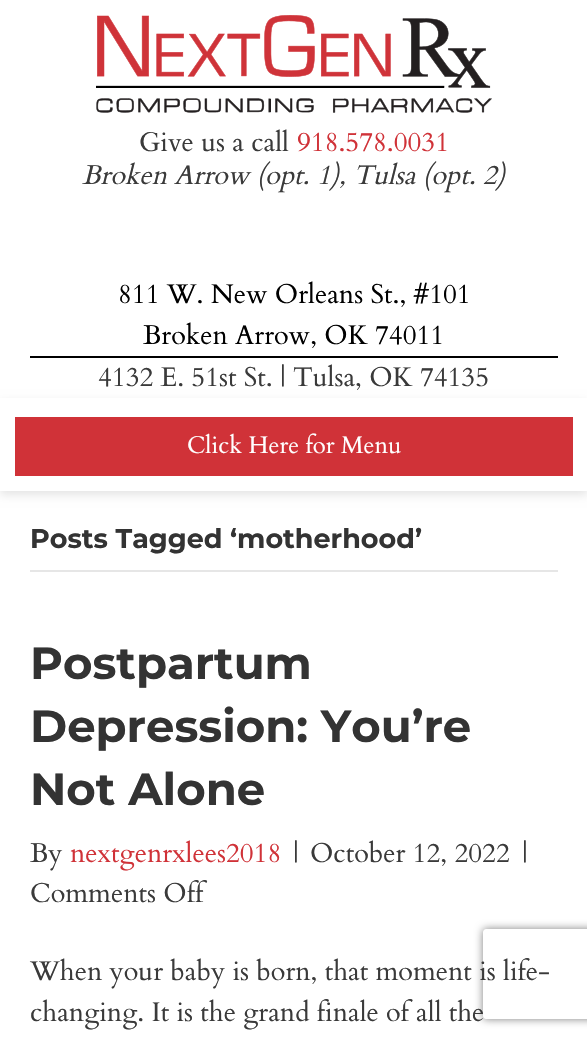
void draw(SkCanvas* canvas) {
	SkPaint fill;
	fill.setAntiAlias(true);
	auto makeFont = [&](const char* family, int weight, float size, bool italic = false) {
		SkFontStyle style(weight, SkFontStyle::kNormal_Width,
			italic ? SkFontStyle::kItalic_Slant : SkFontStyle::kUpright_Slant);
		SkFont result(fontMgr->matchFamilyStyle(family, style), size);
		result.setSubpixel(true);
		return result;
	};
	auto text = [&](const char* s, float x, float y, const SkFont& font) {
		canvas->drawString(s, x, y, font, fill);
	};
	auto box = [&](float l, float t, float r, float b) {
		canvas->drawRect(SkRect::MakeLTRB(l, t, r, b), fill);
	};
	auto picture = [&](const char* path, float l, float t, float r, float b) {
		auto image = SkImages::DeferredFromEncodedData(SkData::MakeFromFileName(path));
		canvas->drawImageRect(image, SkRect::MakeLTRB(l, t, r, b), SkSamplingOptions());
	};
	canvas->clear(0xFFFFFFFF);
	picture("image0.png", 96, 15, 492, 113);
	fill.setColor(0xFF000000);
	box(30, 356, 558, 358);
	fill.setColor(0x1A020000);
	fill.setMaskFilter(SkMaskFilter::MakeBlur(kNormal_SkBlurStyle, 4.5f));
	canvas->drawRect(SkRect::MakeLTRB(0, 402, 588, 495), fill);
	fill.setMaskFilter(nullptr);
	fill.setColor(0xFFFFFFFF);
	box(0, 398, 587, 491);
	fill.setColor(0xFFD03238);
	box(15, 417, 573, 476);
	fill.setColor(0xFFE6E6E6);
	box(30, 570, 558, 572);
	canvas->save();
	canvas->clipPath(SkPathBuilder(SkPathFillType::kEvenOdd).moveTo(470, 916).lineTo(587, 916).lineTo(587, 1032).lineTo(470, 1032).close().moveTo(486, 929).lineTo(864, 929).cubicTo(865.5f, 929, 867, 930.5f, 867, 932).lineTo(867, 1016).cubicTo(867, 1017.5f, 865.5f, 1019, 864, 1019).lineTo(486, 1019).cubicTo(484.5f, 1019, 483, 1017.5f, 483, 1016).lineTo(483, 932).cubicTo(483, 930.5f, 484.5f, 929, 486, 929).close().detach(), true);
	fill.setColor(0xFF808080);
	fill.setMaskFilter(SkMaskFilter::MakeBlur(kNormal_SkBlurStyle, 4));
	canvas->drawRoundRect(SkRect::MakeLTRB(483, 929, 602, 1019), 3, 3, fill);
	fill.setMaskFilter(nullptr);
	canvas->restore();
	auto font1 = makeFont("Cardo", 400, 27);
	fill.setColor(0xFF3A3A3A);
	text("Give us a call", 139, 151, font1);
	fill.setColor(0xFFD03238);
	text("918.578.0031", 297, 151, font1);
	auto font2 = makeFont("Cardo", 400, 27, true);
	fill.setColor(0xFF3A3A3A);
	text("Broken Arrow (opt. 1), Tulsa (opt. 2)", 82, 184, font2);
	fill.setColor(0xFF000000);
	text("811 W. New Orleans St., #101", 118, 303, font1);
	text("Broken Arrow, OK 74011", 143, 344, font1);
	fill.setColor(0xFF3A3A3A);
	text("4132 E. 51st St. | Tulsa, OK 74135", 98, 386, font1);
	auto font3 = makeFont("Cardo", 400, 24);
	fill.setColor(0xFFFFFFFF);
	text("Click Here for Menu", 187, 453, font3);
	auto font4 = makeFont("Montserrat", 100, 27);
	fill.setColor(0xFF333333);
	text("Posts Tagged ‘motherhood’", 30, 548, font4);
	auto font5 = makeFont("Montserrat", 100, 45);
	text("Postpartum", 30, 679, font5);
	text("Depression: You’re", 30, 742, font5);
	text("Not Alone", 30, 805, font5);
	fill.setColor(0xFF3A3A3A);
	text("By", 30, 862, font1);
	fill.setColor(0xFFD03238);
	text("nextgenrxlees2018", 70, 862, font1);
	fill.setColor(0xFF3A3A3A);
	text("|", 293, 862, font1);
	text("October 12, 2022", 310, 862, font1);
	text("|", 522, 862, font1);
	text("Comments Off", 30, 902, font1);
	text("When your baby is born, that moment is life-", 30, 980, font1);
	text("changing. It is the grand finale of all the", 30, 1021, font1);
}
